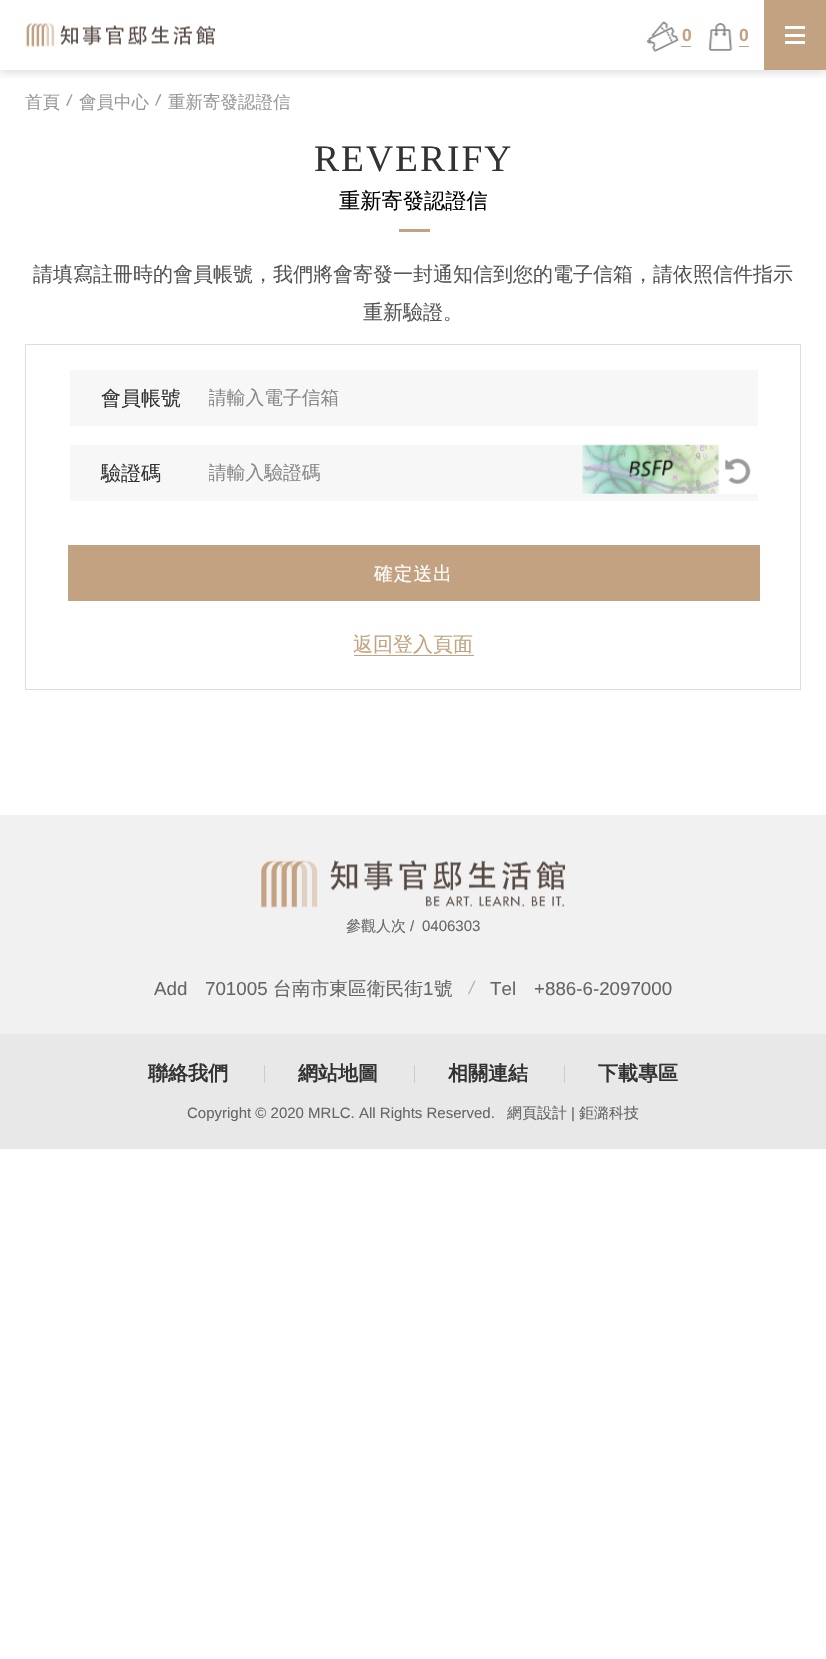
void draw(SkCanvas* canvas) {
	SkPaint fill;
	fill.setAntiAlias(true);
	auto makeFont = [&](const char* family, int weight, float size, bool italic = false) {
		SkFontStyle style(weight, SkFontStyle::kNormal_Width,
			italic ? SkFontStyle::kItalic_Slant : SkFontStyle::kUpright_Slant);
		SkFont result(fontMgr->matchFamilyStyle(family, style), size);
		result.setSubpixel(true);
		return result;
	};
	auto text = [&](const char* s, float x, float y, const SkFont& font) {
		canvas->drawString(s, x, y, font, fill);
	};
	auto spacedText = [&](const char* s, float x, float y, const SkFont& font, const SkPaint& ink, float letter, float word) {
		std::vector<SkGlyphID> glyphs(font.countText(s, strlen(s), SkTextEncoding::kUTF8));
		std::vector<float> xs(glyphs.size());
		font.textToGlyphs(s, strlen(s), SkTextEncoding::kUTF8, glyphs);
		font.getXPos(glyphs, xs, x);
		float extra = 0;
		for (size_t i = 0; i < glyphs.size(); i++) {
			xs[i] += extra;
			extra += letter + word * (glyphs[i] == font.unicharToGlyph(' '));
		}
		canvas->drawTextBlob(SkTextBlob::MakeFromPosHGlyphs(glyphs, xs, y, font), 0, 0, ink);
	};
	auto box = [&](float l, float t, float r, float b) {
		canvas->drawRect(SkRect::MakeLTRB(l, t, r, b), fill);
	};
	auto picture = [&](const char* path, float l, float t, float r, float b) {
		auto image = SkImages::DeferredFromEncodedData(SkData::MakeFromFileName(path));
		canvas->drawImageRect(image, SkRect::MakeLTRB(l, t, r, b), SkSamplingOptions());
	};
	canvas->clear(0xFFFFFFFF);
	canvas->save();
	canvas->clipRect(SkRect::MakeLTRB(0, 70, 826, 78));
	fill.setColor(0x33000000);
	fill.setMaskFilter(SkMaskFilter::MakeBlur(kNormal_SkBlurStyle, 6));
	canvas->drawRect(SkRect::MakeLTRB(0, 0, 826, 70), fill);
	fill.setMaskFilter(nullptr);
	canvas->restore();
	picture("image0.png", 26, 23, 215, 47);
	picture("image1.png", 646, 21, 679, 52);
	fill.setColor(0xFFC3A282);
	box(681, 46, 691, 47);
	picture("image2.png", 708, 23, 733, 51);
	box(739, 46, 749, 47);
	box(764, 0, 826, 70);
	fill.setColor(0xFFFFFFFF);
	box(785, 26, 805, 29);
	box(785, 34, 805, 37);
	box(785, 41, 805, 44);
	fill.setColor(0xFF999999);
	canvas->drawPath(SkPathBuilder().moveTo(71.5f, 94).lineTo(72.5f, 94.5f).lineTo(67.5f, 106).lineTo(66, 105.5f).close().detach(), fill);
	canvas->drawPath(SkPathBuilder().moveTo(160, 94).lineTo(161.5f, 94.5f).lineTo(156, 106).lineTo(155, 105.5f).close().detach(), fill);
	fill.setColor(0xFFC3A282);
	box(399, 229, 430, 232);
	fill.setStyle(SkPaint::kStroke_Style);
	fill.setStrokeWidth(1);
	fill.setColor(0xFFDDDDDD);
	canvas->drawRect(SkRect::MakeLTRB(25.5f, 344.5f, 800.5f, 689.5f), fill);
	fill.setStyle(SkPaint::kFill_Style);
	fill.setColor(0xFFF7F7F7);
	box(70, 370, 758, 426);
	box(70, 445, 758, 501);
	fill.setColor(0xFFFFFFFF);
	box(583, 445, 758, 494);
	picture("image3.png", 582, 444, 720, 494);
	picture("image4.png", 725, 458, 751, 484);
	fill.setColor(0xFFC3A282);
	box(68, 545, 760, 601);
	box(354, 655, 474, 656);
	fill.setColor(0xFFF1F1F1);
	box(0, 815, 826, 1034);
	picture("image5.png", 261, 860, 565, 908);
	fill.setColor(0xFFAAAAAA);
	canvas->drawPath(SkPathBuilder().moveTo(474.5f, 980.5f).lineTo(475.5f, 981).lineTo(469, 994.5f).lineTo(468, 994).close().detach(), fill);
	fill.setColor(0xFFE9E8E8);
	box(0, 1034, 826, 1149);
	fill.setColor(0xFFCCCCCC);
	box(264, 1065, 265, 1083);
	box(414, 1065, 415, 1083);
	box(564, 1065, 565, 1083);
	auto font1 = makeFont("Liberation Sans", 700, 17.5f);
	fill.setColor(0xFFC3A282);
	text("0", 682, 41, font1);
	text("0", 739, 41, font1);
	auto font2 = makeFont("WenQuanYi Zen Hei", 500, 17.5f);
	fill.setColor(0xFF999999);
	text("首頁", 25, 108, font2);
	text("會員中心", 79, 108, font2);
	text("重新寄發認證信", 168, 108, font2);
	auto font3 = makeFont("Liberation Serif", 400, 37.5f);
	fill.setColor(0xFF333333);
	spacedText("REVERIFY", 314, 171, font3, fill, 2, 0);
	auto font4 = makeFont("WenQuanYi Zen Hei", 500, 21.25f);
	fill.setColor(0xFF000000);
	text("重新寄發認證信", 339, 208, font4);
	auto font5 = makeFont("WenQuanYi Zen Hei", 500, 20);
	fill.setColor(0xFF555555);
	text("請填寫註冊時的會員帳號，我們將會寄發一封通知信到您的電子信箱，請依照信件指示", 33, 281, font5);
	text("重新驗證。", 363, 319, font5);
	fill.setColor(0xFF333333);
	text("會員帳號", 101, 405, font5);
	canvas->save();
	canvas->clipRect(SkRect::MakeLTRB(209, 386, 744, 410));
	auto font6 = makeFont("WenQuanYi Zen Hei", 500, 18.75f);
	fill.setColor(0xFF888888);
	text("請輸入電子信箱", 208, 404, font6);
	canvas->restore();
	fill.setColor(0xFF333333);
	text("驗證碼", 101, 480, font5);
	canvas->save();
	canvas->clipRect(SkRect::MakeLTRB(209, 461, 544, 485));
	fill.setColor(0xFF888888);
	text("請輸入驗證碼", 208, 479, font6);
	canvas->restore();
	fill.setColor(0xFFFFFFFF);
	spacedText("確定送出", 374, 580, font6, fill, 1, 0);
	fill.setColor(0xFFC3A282);
	text("返回登入頁面", 353, 651, font5);
	auto font7 = makeFont("WenQuanYi Zen Hei", 500, 15);
	fill.setColor(0xFF666666);
	text("參觀人次", 346, 931, font7);
	auto font8 = makeFont("Liberation Sans", 400, 15);
	text("/", 410, 931, font8);
	text("0406303", 422, 931, font8);
	auto font9 = makeFont("Liberation Sans", 400, 18.75f);
	text("Add", 154, 995, font9);
	text("701005", 205, 995, font9);
	text("台南市東區衛民街", 273, 995, font6);
	text("1", 423, 995, font9);
	text("號", 434, 995, font6);
	text("Tel", 490, 995, font9);
	text("+886-6-2097000", 534, 995, font9);
	auto font10 = makeFont("WenQuanYi Zen Hei", 700, 20);
	fill.setColor(0xFF333333);
	text("聯絡我們", 148, 1080, font10);
	text("網站地圖", 298, 1080, font10);
	text("相關連結", 448, 1080, font10);
	text("下載專區", 598, 1080, font10);
	fill.setColor(0xFF666666);
	text("Copyright © 2020 MRLC. All Rights Reserved.", 187, 1118, font8);
	text("網頁設計", 507, 1118, font7);
	text("|", 571, 1118, font8);
	text("鉅潞科技", 579, 1118, font7);
}
